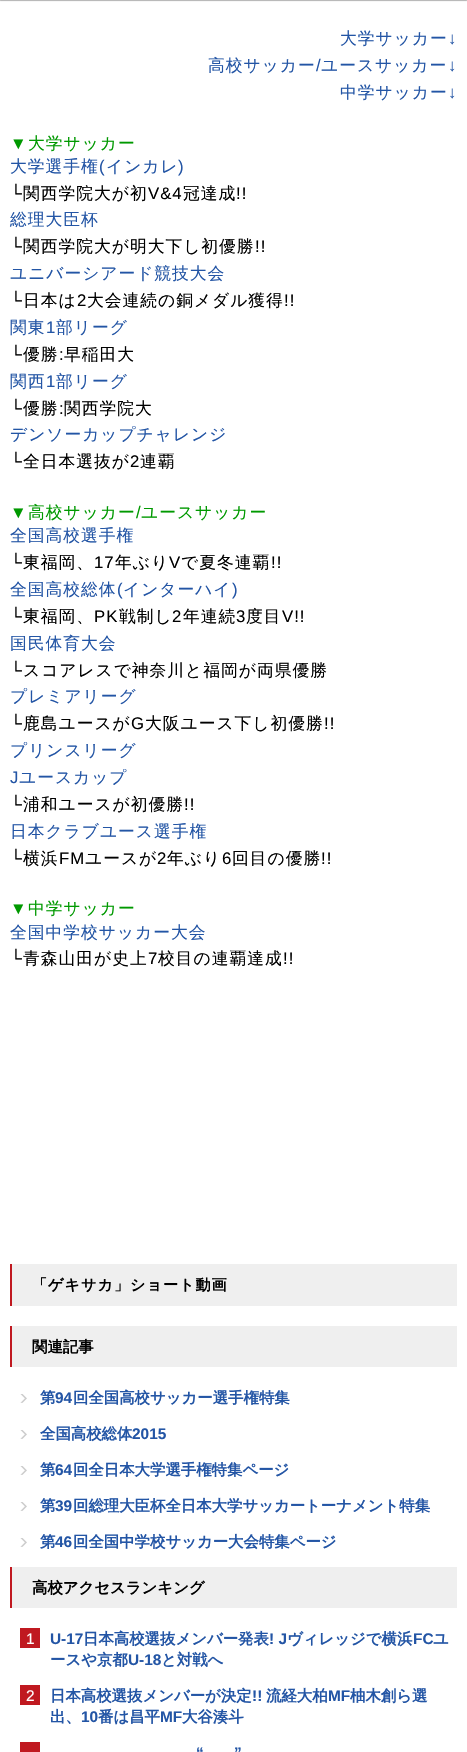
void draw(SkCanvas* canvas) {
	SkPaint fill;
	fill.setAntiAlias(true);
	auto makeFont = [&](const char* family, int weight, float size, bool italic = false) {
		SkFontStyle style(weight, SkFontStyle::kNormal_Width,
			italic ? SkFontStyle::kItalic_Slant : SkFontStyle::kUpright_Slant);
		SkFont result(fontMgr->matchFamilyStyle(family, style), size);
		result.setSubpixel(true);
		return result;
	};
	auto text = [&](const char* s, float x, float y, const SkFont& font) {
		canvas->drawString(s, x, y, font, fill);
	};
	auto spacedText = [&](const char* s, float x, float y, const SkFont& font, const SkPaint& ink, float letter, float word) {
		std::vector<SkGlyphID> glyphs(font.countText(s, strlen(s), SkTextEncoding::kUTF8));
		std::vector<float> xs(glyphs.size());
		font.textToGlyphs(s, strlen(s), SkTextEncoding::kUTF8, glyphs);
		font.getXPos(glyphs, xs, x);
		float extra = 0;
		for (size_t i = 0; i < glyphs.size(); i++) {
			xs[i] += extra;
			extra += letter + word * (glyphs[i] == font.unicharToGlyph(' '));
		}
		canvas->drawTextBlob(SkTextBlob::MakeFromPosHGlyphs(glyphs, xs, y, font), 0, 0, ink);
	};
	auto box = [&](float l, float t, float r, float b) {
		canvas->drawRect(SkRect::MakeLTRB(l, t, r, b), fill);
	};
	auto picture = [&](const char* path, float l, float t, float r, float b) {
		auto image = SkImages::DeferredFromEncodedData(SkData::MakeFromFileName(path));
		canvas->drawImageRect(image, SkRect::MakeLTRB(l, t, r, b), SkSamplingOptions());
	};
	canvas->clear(0xFFFFFFFF);
	fill.setColor(0x4D000000);
	fill.setMaskFilter(SkMaskFilter::MakeBlur(kNormal_SkBlurStyle, 0.5f));
	canvas->drawRect(SkRect::MakeLTRB(0, -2, 467, 1), fill);
	fill.setMaskFilter(nullptr);
	fill.setColor(0xFFEFEFEF);
	box(12, 1264, 457, 1306);
	fill.setColor(0xFFC01920);
	box(10, 1264, 12, 1306);
	fill.setColor(0xFFEFEFEF);
	box(12, 1326, 457, 1367);
	fill.setColor(0xFFC01920);
	box(10, 1326, 12, 1367);
	picture("image0.png", 20, 1394, 27, 1403);
	picture("image0.png", 20, 1430, 27, 1439);
	picture("image0.png", 20, 1466, 27, 1475);
	picture("image0.png", 20, 1502, 27, 1511);
	picture("image0.png", 20, 1538, 27, 1547);
	fill.setColor(0xFFEFEFEF);
	box(12, 1567, 457, 1608);
	fill.setColor(0xFFC01920);
	box(10, 1567, 12, 1608);
	box(20, 1628, 40, 1648);
	box(20, 1685, 40, 1705);
	box(20, 1742, 40, 1752);
	auto font1 = makeFont("WenQuanYi Zen Hei", 500, 16.75f);
	fill.setColor(0xFF2355A5);
	spacedText("大学サッカー", 340, 44, font1, fill, 1, 0);
	auto font2 = makeFont("Liberation Sans", 400, 16.75f);
	spacedText("↓", 448, 44, font2, fill, 1, 0);
	spacedText("高校サッカー", 208, 71, font1, fill, 1, 0);
	spacedText("/", 316, 71, font2, fill, 1, 0);
	spacedText("ユースサッカー", 321, 71, font1, fill, 1, 0);
	spacedText("↓", 448, 71, font2, fill, 1, 0);
	spacedText("中学サッカー", 340, 98, font1, fill, 1, 0);
	spacedText("↓", 448, 98, font2, fill, 1, 0);
	fill.setColor(0xFF009900);
	spacedText("▼", 10, 149, font2, fill, 1, 0);
	spacedText("大学サッカー", 28, 149, font1, fill, 1, 0);
	fill.setColor(0xFF2355A5);
	spacedText("大学選手権", 10, 172, font1, fill, 1, 0);
	spacedText("(", 99, 172, font2, fill, 1, 0);
	spacedText("インカレ", 106, 172, font1, fill, 1, 0);
	spacedText(")", 178, 172, font2, fill, 1, 0);
	fill.setColor(0xFF000000);
	spacedText("└", 10, 199, font2, fill, 1, 0);
	spacedText("関西学院大が初", 23, 199, font1, fill, 1, 0);
	spacedText("V&4", 148, 199, font2, fill, 1, 0);
	spacedText("冠達成", 183, 199, font1, fill, 1, 0);
	spacedText("!!", 236, 199, font2, fill, 1, 0);
	fill.setColor(0xFF2355A5);
	spacedText("総理大臣杯", 10, 225, font1, fill, 1, 0);
	fill.setColor(0xFF000000);
	spacedText("└", 10, 252, font2, fill, 1, 0);
	spacedText("関西学院大が明大下し初優勝", 23, 252, font1, fill, 1, 0);
	spacedText("!!", 255, 252, font2, fill, 1, 0);
	fill.setColor(0xFF2355A5);
	spacedText("ユニバーシアード競技大会", 10, 279, font1, fill, 1, 0);
	fill.setColor(0xFF000000);
	spacedText("└", 10, 306, font2, fill, 1, 0);
	spacedText("日本は", 23, 306, font1, fill, 1, 0);
	spacedText("2", 77, 306, font2, fill, 1, 0);
	spacedText("大会連続の銅メダル獲得", 87, 306, font1, fill, 1, 0);
	spacedText("!!", 284, 306, font2, fill, 1, 0);
	fill.setColor(0xFF2355A5);
	spacedText("関東", 10, 333, font1, fill, 1, 0);
	spacedText("1", 46, 333, font2, fill, 1, 0);
	spacedText("部リーグ", 56, 333, font1, fill, 1, 0);
	fill.setColor(0xFF000000);
	spacedText("└", 10, 360, font2, fill, 1, 0);
	spacedText("優勝", 23, 360, font1, fill, 1, 0);
	spacedText(":", 59, 360, font2, fill, 1, 0);
	spacedText("早稲田大", 64, 360, font1, fill, 1, 0);
	fill.setColor(0xFF2355A5);
	spacedText("関西", 10, 387, font1, fill, 1, 0);
	spacedText("1", 46, 387, font2, fill, 1, 0);
	spacedText("部リーグ", 56, 387, font1, fill, 1, 0);
	fill.setColor(0xFF000000);
	spacedText("└", 10, 414, font2, fill, 1, 0);
	spacedText("優勝", 23, 414, font1, fill, 1, 0);
	spacedText(":", 59, 414, font2, fill, 1, 0);
	spacedText("関西学院大", 64, 414, font1, fill, 1, 0);
	fill.setColor(0xFF2355A5);
	spacedText("デンソーカップチャレンジ", 10, 440, font1, fill, 1, 0);
	fill.setColor(0xFF000000);
	spacedText("└", 10, 467, font2, fill, 1, 0);
	spacedText("全日本選抜が", 23, 467, font1, fill, 1, 0);
	spacedText("2", 130, 467, font2, fill, 1, 0);
	spacedText("連覇", 140, 467, font1, fill, 1, 0);
	fill.setColor(0xFF009900);
	spacedText("▼", 10, 518, font2, fill, 1, 0);
	spacedText("高校サッカー", 28, 518, font1, fill, 1, 0);
	spacedText("/", 136, 518, font2, fill, 1, 0);
	spacedText("ユースサッカー", 141, 518, font1, fill, 1, 0);
	fill.setColor(0xFF2355A5);
	spacedText("全国高校選手権", 10, 541, font1, fill, 1, 0);
	fill.setColor(0xFF000000);
	spacedText("└", 10, 568, font2, fill, 1, 0);
	spacedText("東福岡、", 23, 568, font1, fill, 1, 0);
	spacedText("17", 94, 568, font2, fill, 1, 0);
	spacedText("年ぶり", 115, 568, font1, fill, 1, 0);
	spacedText("V", 169, 568, font2, fill, 1, 0);
	spacedText("で夏冬連覇", 181, 568, font1, fill, 1, 0);
	spacedText("!!", 271, 568, font2, fill, 1, 0);
	fill.setColor(0xFF2355A5);
	spacedText("全国高校総体", 10, 595, font1, fill, 1, 0);
	spacedText("(", 117, 595, font2, fill, 1, 0);
	spacedText("インターハイ", 123, 595, font1, fill, 1, 0);
	spacedText(")", 232, 595, font2, fill, 1, 0);
	fill.setColor(0xFF000000);
	spacedText("└", 10, 622, font2, fill, 1, 0);
	spacedText("東福岡、", 23, 622, font1, fill, 1, 0);
	spacedText("PK", 94, 622, font2, fill, 1, 0);
	spacedText("戦制し", 119, 622, font1, fill, 1, 0);
	spacedText("2", 172, 622, font2, fill, 1, 0);
	spacedText("年連続", 183, 622, font1, fill, 1, 0);
	spacedText("3", 236, 622, font2, fill, 1, 0);
	spacedText("度目", 246, 622, font1, fill, 1, 0);
	spacedText("V!!", 282, 622, font2, fill, 1, 0);
	fill.setColor(0xFF2355A5);
	spacedText("国民体育大会", 10, 649, font1, fill, 1, 0);
	fill.setColor(0xFF000000);
	spacedText("└", 10, 676, font2, fill, 1, 0);
	spacedText("スコアレスで神奈川と福岡が両県優勝", 23, 676, font1, fill, 1, 0);
	fill.setColor(0xFF2355A5);
	spacedText("プレミアリーグ", 10, 702, font1, fill, 1, 0);
	fill.setColor(0xFF000000);
	spacedText("└", 10, 729, font2, fill, 1, 0);
	spacedText("鹿島ユースが", 23, 729, font1, fill, 1, 0);
	spacedText("G", 131, 729, font2, fill, 1, 0);
	spacedText("大阪ユース下し初優勝", 145, 729, font1, fill, 1, 0);
	spacedText("!!", 324, 729, font2, fill, 1, 0);
	fill.setColor(0xFF2355A5);
	spacedText("プリンスリーグ", 10, 756, font1, fill, 1, 0);
	spacedText("J", 10, 783, font2, fill, 1, 0);
	spacedText("ユースカップ", 19, 783, font1, fill, 1, 0);
	fill.setColor(0xFF000000);
	spacedText("└", 10, 810, font2, fill, 1, 0);
	spacedText("浦和ユースが初優勝", 23, 810, font1, fill, 1, 0);
	spacedText("!!", 184, 810, font2, fill, 1, 0);
	fill.setColor(0xFF2355A5);
	spacedText("日本クラブユース選手権", 10, 837, font1, fill, 1, 0);
	fill.setColor(0xFF000000);
	spacedText("└", 10, 864, font2, fill, 1, 0);
	spacedText("横浜", 23, 864, font1, fill, 1, 0);
	spacedText("FM", 59, 864, font2, fill, 1, 0);
	spacedText("ユースが", 85, 864, font1, fill, 1, 0);
	spacedText("2", 157, 864, font2, fill, 1, 0);
	spacedText("年ぶり", 167, 864, font1, fill, 1, 0);
	spacedText("6", 222, 864, font2, fill, 1, 0);
	spacedText("回目の優勝", 232, 864, font1, fill, 1, 0);
	spacedText("!!", 321, 864, font2, fill, 1, 0);
	fill.setColor(0xFF009900);
	spacedText("▼", 10, 914, font2, fill, 1, 0);
	spacedText("中学サッカー", 28, 914, font1, fill, 1, 0);
	fill.setColor(0xFF2355A5);
	spacedText("全国中学校サッカー大会", 10, 938, font1, fill, 1, 0);
	fill.setColor(0xFF000000);
	spacedText("└", 10, 964, font2, fill, 1, 0);
	spacedText("青森山田が史上", 23, 964, font1, fill, 1, 0);
	spacedText("7", 148, 964, font2, fill, 1, 0);
	spacedText("校目の連覇達成", 158, 964, font1, fill, 1, 0);
	spacedText("!!", 283, 964, font2, fill, 1, 0);
	auto font3 = makeFont("WenQuanYi Zen Hei", 700, 15.1f);
	spacedText("「ゲキサカ」ショート動画", 32, 1290, font3, fill, 1, 0);
	auto font4 = makeFont("WenQuanYi Zen Hei", 700, 15.4f);
	text("関連記事", 32, 1352, font4);
	fill.setColor(0xFF2355A5);
	text("第", 40, 1403, font4);
	auto font5 = makeFont("Liberation Sans", 700, 15.4f);
	text("94", 55, 1403, font5);
	text("回全国高校サッカー選手権特集", 73, 1403, font4);
	text("全国高校総体", 40, 1439, font4);
	text("2015", 132, 1439, font5);
	text("第", 40, 1475, font4);
	text("64", 55, 1475, font5);
	text("回全日本大学選手権特集ページ", 73, 1475, font4);
	text("第", 40, 1511, font4);
	text("39", 55, 1511, font5);
	text("回総理大臣杯全日本大学サッカートーナメント特集", 73, 1511, font4);
	text("第", 40, 1547, font4);
	text("46", 55, 1547, font5);
	text("回全国中学校サッカー大会特集ページ", 73, 1547, font4);
	fill.setColor(0xFF000000);
	text("高校アクセスランキング", 32, 1593, font4);
	auto font6 = makeFont("Liberation Sans", 400, 15.4f);
	fill.setColor(0xFFFFFFFF);
	text("1", 26, 1644, font6);
	fill.setColor(0xFF2355A5);
	text("U-17", 50, 1644, font5);
	text("日本高校選抜メンバー発表", 83, 1644, font4);
	text("! J", 269, 1644, font5);
	text("ヴィレッジで横浜", 287, 1644, font4);
	text("FC", 413, 1644, font5);
	text("ユ", 433, 1644, font4);
	text("ースや京都", 50, 1665, font4);
	text("U-18", 128, 1665, font5);
	text("と対戦へ", 161, 1665, font4);
	fill.setColor(0xFFFFFFFF);
	text("2", 26, 1701, font6);
	fill.setColor(0xFF2355A5);
	text("日本高校選抜メンバーが決定", 50, 1701, font4);
	text("!!", 252, 1701, font5);
	text("流経大柏", 266, 1701, font4);
	text("MF", 328, 1701, font5);
	text("柚木創ら選", 350, 1701, font4);
	text("出、", 50, 1722, font4);
	text("10", 81, 1722, font5);
	text("番は昌平", 98, 1722, font4);
	text("MF", 160, 1722, font5);
	text("大谷湊斗", 182, 1722, font4);
	text("“", 196, 1758, font5);
	text("”", 234, 1758, font5);
}
